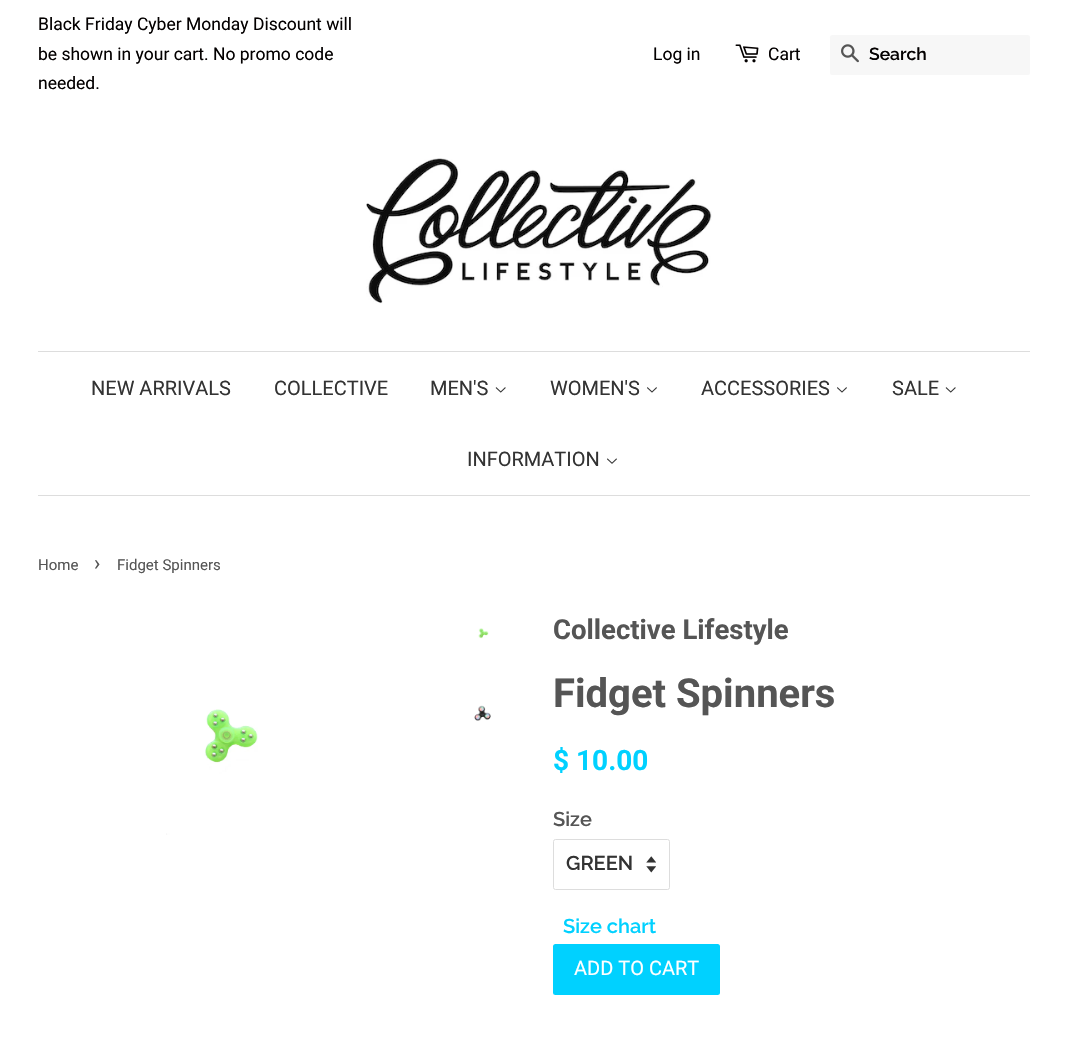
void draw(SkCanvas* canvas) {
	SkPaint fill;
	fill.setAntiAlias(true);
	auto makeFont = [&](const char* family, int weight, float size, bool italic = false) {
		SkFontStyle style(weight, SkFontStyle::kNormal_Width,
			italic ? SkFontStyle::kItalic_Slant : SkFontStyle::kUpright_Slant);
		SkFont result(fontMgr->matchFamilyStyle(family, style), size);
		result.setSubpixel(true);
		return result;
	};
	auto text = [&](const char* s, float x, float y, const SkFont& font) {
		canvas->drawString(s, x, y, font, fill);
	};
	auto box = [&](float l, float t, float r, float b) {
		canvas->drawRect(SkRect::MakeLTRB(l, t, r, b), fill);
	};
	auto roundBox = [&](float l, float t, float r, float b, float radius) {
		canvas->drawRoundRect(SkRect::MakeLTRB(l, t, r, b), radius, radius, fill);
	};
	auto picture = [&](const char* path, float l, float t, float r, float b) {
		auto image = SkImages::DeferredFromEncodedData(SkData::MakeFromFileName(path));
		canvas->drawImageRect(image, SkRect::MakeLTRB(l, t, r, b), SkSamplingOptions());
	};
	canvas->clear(0xFFFFFFFF);
	picture("image0.png", 735, 44, 759, 63);
	fill.setColor(0xFFF7F7F7);
	roundBox(830, 35, 1030, 75, 2.5f);
	picture("image1.png", 841, 44, 859, 63);
	picture("image2.png", 366, 158, 712, 304);
	fill.setColor(0xFFDDDDDD);
	box(38, 351, 1030, 352);
	box(38, 495, 1030, 496);
	picture("image3.png", 495, 387, 506, 393);
	picture("image4.png", 647, 387, 657, 393);
	picture("image4.png", 837, 387, 847, 393);
	picture("image3.png", 945, 387, 956, 393);
	picture("image5.png", 607, 458, 617, 464);
	picture("image6.png", 478, 628, 489, 639);
	picture("image7.png", 474, 705, 491, 721);
	picture("image8.png", 166, 709, 258, 835);
	picture("image9.png", 646, 856, 656, 873);
	fill.setStyle(SkPaint::kStroke_Style);
	fill.setStrokeWidth(1);
	canvas->drawRoundRect(SkRect::MakeLTRB(553.5f, 839.5f, 669.5f, 889.5f), 2, 2, fill);
	fill.setStyle(SkPaint::kFill_Style);
	fill.setColor(0xFF00D1FF);
	roundBox(553, 944, 720, 995, 2.5f);
	auto font1 = makeFont("Roboto", 400, 17.5f);
	fill.setColor(0xFF030000);
	text("Black Friday Cyber Monday Discount will", 38, 30, font1);
	text("be shown in your cart. No promo code", 38, 60, font1);
	text("needed.", 38, 89, font1);
	text("Log in", 653, 60, font1);
	text("Cart", 768, 60, font1);
	auto font2 = makeFont("Raleway", 600, 17.5f);
	text("Search", 869, 60, font2);
	auto font3 = makeFont("Roboto", 400, 20);
	fill.setColor(0xFF333333);
	text("NEW ARRIVALS", 91, 395, font3);
	text("COLLECTIVE", 274, 395, font3);
	text("MEN'S", 430, 395, font3);
	text("WOMEN'S", 550, 395, font3);
	text("ACCESSORIES", 701, 395, font3);
	text("SALE", 892, 395, font3);
	text("INFORMATION", 467, 466, font3);
	auto font4 = makeFont("Roboto", 400, 15);
	fill.setColor(0xFF555555);
	text("Home", 38, 570, font4);
	auto font5 = makeFont("Roboto", 400, 21);
	text("›", 94, 570, font5);
	text("Fidget Spinners", 117, 570, font4);
	auto font6 = makeFont("Roboto", 700, 27.5f);
	text("Collective Lifestyle", 553, 639, font6);
	auto font7 = makeFont("Roboto", 700, 40);
	text("Fidget Spinners", 553, 707, font7);
	auto font8 = makeFont("Roboto", 700, 28);
	fill.setColor(0xFF00D1FF);
	text("$ 10.00", 553, 770, font8);
	auto font9 = makeFont("Raleway", 600, 20);
	fill.setColor(0xFF555555);
	text("Size", 553, 826, font9);
	fill.setColor(0xFF333333);
	text("GREEN", 566, 870, font9);
	fill.setColor(0xFF00D1FF);
	text("Size chart", 563, 933, font9);
	fill.setColor(0xFFFFFFFF);
	text("ADD TO CART", 574, 975, font3);
}
